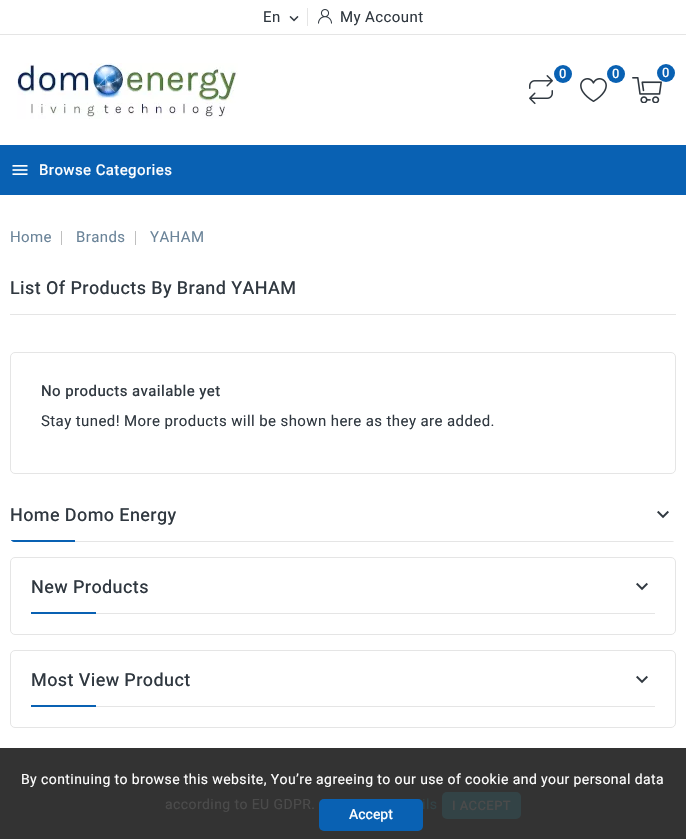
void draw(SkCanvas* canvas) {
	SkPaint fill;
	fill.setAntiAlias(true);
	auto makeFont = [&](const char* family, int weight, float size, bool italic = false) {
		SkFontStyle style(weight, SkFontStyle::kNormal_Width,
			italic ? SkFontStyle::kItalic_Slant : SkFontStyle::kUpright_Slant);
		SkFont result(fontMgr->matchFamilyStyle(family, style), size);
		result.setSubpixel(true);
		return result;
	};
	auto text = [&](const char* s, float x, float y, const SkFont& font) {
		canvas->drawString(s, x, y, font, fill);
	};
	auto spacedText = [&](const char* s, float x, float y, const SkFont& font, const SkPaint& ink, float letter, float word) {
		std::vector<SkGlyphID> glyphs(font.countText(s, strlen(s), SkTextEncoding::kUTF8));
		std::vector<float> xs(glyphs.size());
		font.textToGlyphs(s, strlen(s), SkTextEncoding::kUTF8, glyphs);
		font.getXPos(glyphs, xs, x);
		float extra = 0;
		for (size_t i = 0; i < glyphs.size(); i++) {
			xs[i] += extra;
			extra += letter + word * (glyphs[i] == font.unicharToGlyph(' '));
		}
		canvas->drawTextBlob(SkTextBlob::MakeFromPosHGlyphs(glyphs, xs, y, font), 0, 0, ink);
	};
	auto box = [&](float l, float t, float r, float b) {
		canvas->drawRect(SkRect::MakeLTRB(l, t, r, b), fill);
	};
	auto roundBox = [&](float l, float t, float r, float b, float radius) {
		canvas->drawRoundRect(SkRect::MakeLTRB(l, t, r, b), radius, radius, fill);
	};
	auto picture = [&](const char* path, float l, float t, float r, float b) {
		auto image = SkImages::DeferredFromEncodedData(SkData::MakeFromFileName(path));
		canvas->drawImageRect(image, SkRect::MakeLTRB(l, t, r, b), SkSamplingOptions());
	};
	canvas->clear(0xFFFFFFFF);
	fill.setColor(0xFFE5E5E5);
	box(0, 34, 686, 35);
	picture("image0.png", 289, 16, 299, 22);
	box(307, 8, 308, 26);
	picture("image1.png", 318, 9, 332, 24);
	picture("image2.png", 17, 63, 238, 119);
	fill.setColor(0xFF0961B3);
	canvas->drawCircle(563, 74, 9, fill);
	picture("image3.png", 529, 75, 553, 105);
	canvas->drawCircle(616, 74, 9, fill);
	picture("image4.png", 580, 78, 607, 102);
	picture("image5.png", 632, 77, 662, 103);
	canvas->drawCircle(666, 73, 9, fill);
	box(0, 145, 686, 195);
	picture("image6.png", 12, 165, 28, 175);
	fill.setColor(0xFFBFBFBF);
	box(61, 231, 62, 245);
	box(135, 231, 136, 245);
	fill.setColor(0xFFE5E5E5);
	box(10, 314, 676, 315);
	fill.setStyle(SkPaint::kStroke_Style);
	fill.setStrokeWidth(1);
	canvas->drawRoundRect(SkRect::MakeLTRB(10.5f, 352.5f, 675.5f, 473.5f), 4.5f, 4.5f, fill);
	canvas->save();
	canvas->clipPath(SkPathBuilder().moveTo(15, 506).lineTo(671, 506).cubicTo(674, 506, 676, 508, 676, 511).lineTo(676, 537).cubicTo(676, 540, 674, 542, 671, 542).lineTo(15, 542).cubicTo(12, 542, 10, 540, 10, 537).lineTo(10, 511).cubicTo(10, 508, 12, 506, 15, 506).close().detach(), true);
	fill.setStyle(SkPaint::kFill_Style);
	box(10, 541, 676, 542);
	canvas->restore();
	picture("image7.png", 657, 510, 669, 519);
	canvas->save();
	canvas->clipPath(SkPathBuilder().moveTo(15, 506).lineTo(671, 506).cubicTo(674, 506, 676, 508, 676, 511).lineTo(676, 537).cubicTo(676, 540, 674, 542, 671, 542).lineTo(15, 542).cubicTo(12, 542, 10, 540, 10, 537).lineTo(10, 511).cubicTo(10, 508, 12, 506, 15, 506).close().detach(), true);
	fill.setColor(0xFF0961B3);
	box(10, 540, 75, 542);
	canvas->restore();
	fill.setStyle(SkPaint::kStroke_Style);
	fill.setColor(0xFFE5E5E5);
	canvas->drawRoundRect(SkRect::MakeLTRB(10.5f, 557.5f, 675.5f, 634.5f), 4.5f, 4.5f, fill);
	fill.setStyle(SkPaint::kFill_Style);
	box(96, 613, 655, 614);
	picture("image7.png", 636, 582, 648, 591);
	fill.setColor(0xFF0961B3);
	box(31, 612, 96, 614);
	fill.setStyle(SkPaint::kStroke_Style);
	fill.setColor(0xFFE5E5E5);
	canvas->drawRoundRect(SkRect::MakeLTRB(10.5f, 650.5f, 675.5f, 727.5f), 4.5f, 4.5f, fill);
	fill.setStyle(SkPaint::kFill_Style);
	box(96, 706, 655, 707);
	picture("image7.png", 636, 675, 648, 684);
	fill.setColor(0xFF0961B3);
	box(31, 705, 96, 707);
	fill.setColor(0xFF333333);
	box(0, 748, 686, 839);
	fill.setColor(0xFF334346);
	roundBox(442, 792, 521, 819, 5);
	fill.setColor(0xFF0961B3);
	roundBox(319, 799, 423, 831, 5);
	auto font1 = makeFont("Heebo", 400, 15);
	fill.setColor(0xFF303840);
	spacedText("En", 263, 22, font1, fill, 0.4f, 0);
	spacedText("My Account", 340, 22, font1, fill, 0.4f, 0);
	auto font2 = makeFont("Heebo", 500, 13);
	fill.setColor(0xFFFFFFFF);
	spacedText("0", 559, 78, font2, fill, 0.4f, 0);
	spacedText("0", 612, 78, font2, fill, 0.4f, 0);
	spacedText("0", 662, 77, font2, fill, 0.4f, 0);
	auto font3 = makeFont("Heebo", 500, 15);
	spacedText("Browse Categories", 39, 175, font3, fill, 0.4f, 0);
	fill.setColor(0xFF6B8499);
	spacedText("Home", 10, 242, font1, fill, 0.4f, 0);
	spacedText("Brands", 76, 242, font1, fill, 0.4f, 0);
	spacedText("YAHAM", 150, 242, font1, fill, 0.4f, 0);
	auto font4 = makeFont("Heebo", 500, 18);
	fill.setColor(0xFF303840);
	spacedText("List Of Products By Brand YAHAM", 10, 294, font4, fill, 0.4f, 0);
	spacedText("No products available yet", 41, 396, font3, fill, 0.4f, 0);
	spacedText("Stay tuned! More products will be shown here as they are added.", 41, 426, font1, fill, 0.4f, 0);
	spacedText("Home Domo Energy", 10, 521, font4, fill, 0.4f, 0);
	spacedText("New Products", 31, 593, font4, fill, 0.4f, 0);
	spacedText("Most View Product", 31, 686, font4, fill, 0.4f, 0);
	auto font5 = makeFont("Heebo", 400, 14);
	fill.setColor(0xFFFFFFFF);
	spacedText("By continuing to browse this website, You’re agreeing to our use of cookie and your personal data", 21, 784, font5, fill, 0.4f, 0);
	fill.setColor(0xFF4B4B4B);
	spacedText("according to EU GDPR.", 165, 809, font5, fill, 0.4f, 0);
	fill.setColor(0xFF334346);
	spacedText("ils", 422, 809, font5, fill, 0.4f, 0);
	fill.setColor(0xFF4B4B4B);
	spacedText("I ACCEPT", 452, 810, font2, fill, 0.4f, 0);
	auto font6 = makeFont("Heebo", 500, 14);
	fill.setColor(0xFFFFFFFF);
	text("Accept", 349, 819, font6);
}
